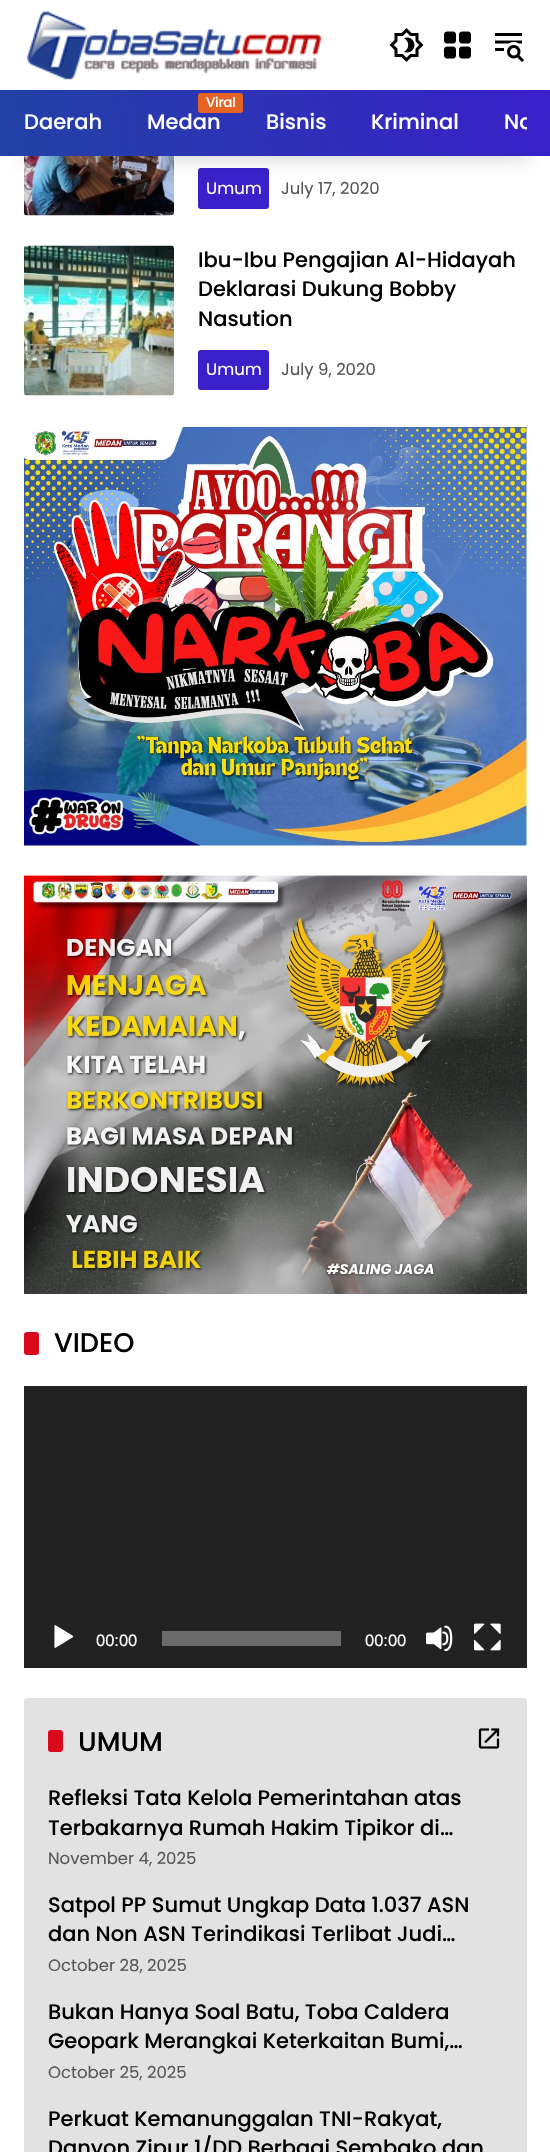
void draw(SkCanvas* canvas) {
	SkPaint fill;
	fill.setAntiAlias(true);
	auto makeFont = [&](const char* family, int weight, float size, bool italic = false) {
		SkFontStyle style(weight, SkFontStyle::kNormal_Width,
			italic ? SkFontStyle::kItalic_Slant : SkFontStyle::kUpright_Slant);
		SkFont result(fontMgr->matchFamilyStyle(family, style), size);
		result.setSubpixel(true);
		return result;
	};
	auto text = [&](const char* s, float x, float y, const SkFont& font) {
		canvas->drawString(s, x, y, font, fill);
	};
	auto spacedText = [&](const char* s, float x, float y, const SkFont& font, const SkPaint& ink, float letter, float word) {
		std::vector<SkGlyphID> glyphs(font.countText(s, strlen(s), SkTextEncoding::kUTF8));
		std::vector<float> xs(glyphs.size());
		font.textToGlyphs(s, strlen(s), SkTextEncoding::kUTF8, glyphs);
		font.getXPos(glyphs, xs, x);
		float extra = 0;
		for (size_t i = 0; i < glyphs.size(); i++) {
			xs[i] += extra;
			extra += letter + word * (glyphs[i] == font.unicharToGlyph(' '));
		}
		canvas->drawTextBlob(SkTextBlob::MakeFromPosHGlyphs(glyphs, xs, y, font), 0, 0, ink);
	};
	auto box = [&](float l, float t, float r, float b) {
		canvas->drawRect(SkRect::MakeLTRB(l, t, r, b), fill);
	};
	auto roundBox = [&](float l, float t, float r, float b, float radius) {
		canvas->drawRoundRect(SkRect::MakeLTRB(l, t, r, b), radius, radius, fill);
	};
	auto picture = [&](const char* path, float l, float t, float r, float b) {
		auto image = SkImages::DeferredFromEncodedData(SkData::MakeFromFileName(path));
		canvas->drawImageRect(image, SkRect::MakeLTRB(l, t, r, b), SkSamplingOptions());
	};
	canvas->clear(0xFFFFFFFF);
	picture("image0.png", 26, 11, 322, 80);
	picture("image1.png", 389, 28, 424, 62);
	picture("image2.png", 444, 31, 471, 59);
	picture("image3.png", 495, 33, 524, 62);
	picture("image4.png", 24, 156, 174, 216);
	fill.setColor(0xFF3920C9);
	roundBox(198, 168, 269, 209, 3);
	fill.setColor(0x33000000);
	fill.setMaskFilter(SkMaskFilter::MakeBlur(kNormal_SkBlurStyle, 11));
	canvas->drawRect(SkRect::MakeLTRB(23, 135, 528, 156), fill);
	fill.setMaskFilter(nullptr);
	{
		const SkColor colors[] = {0xFF2242A5, 0xFF3920C9};
		const float stops[] = {0, 1};
		const SkPoint ends[] = {{2.7f, 171}, {548, 75}};
		fill.setShader(SkGradientShader::MakeLinear(ends, colors, stops, 2, SkTileMode::kClamp));
		fill.setAlpha(255);
	}
	box(0, 90, 550, 156);
	fill.setShader(nullptr);
	fill.setColor(0xFFE56324);
	roundBox(198, 93, 243, 113, 3);
	picture("image5.png", 24, 245, 174, 396);
	fill.setColor(0xFF3920C9);
	roundBox(198, 350, 269, 390, 3);
	picture("image6.png", 24, 427, 527, 846);
	picture("image7.png", 24, 875, 527, 1294);
	fill.setColor(0xFFD9091B);
	roundBox(24, 1332, 39, 1355, 3);
	fill.setColor(0xFF222222);
	box(24, 1386, 527, 1668);
	picture("image8.png", 54, 1625, 74, 1648);
	fill.setColor(0xFF6B6B6B);
	box(162, 1631, 341, 1646);
	picture("image9.png", 426, 1625, 453, 1652);
	picture("image10.png", 474, 1623, 501, 1651);
	fill.setColor(0xFFE2E2E2);
	roundBox(24, 1698, 527, 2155, 3);
	fill.setColor(0xFFD9091B);
	roundBox(48, 1730, 63, 1752, 3);
	picture("image11.png", 478, 1728, 500, 1749);
	auto font1 = makeFont("Poppins", 500, 21);
	fill.setColor(0xFFFFFFFF);
	text("Daerah", 24, 129, font1);
	auto font2 = makeFont("Poppins", 500, 13.5f);
	spacedText("Viral", 206, 107, font2, fill, -0.25f, 0);
	text("Medan", 147, 129, font1);
	text("Bisnis", 266, 129, font1);
	text("Kriminal", 371, 129, font1);
	canvas->save();
	canvas->clipRect(SkRect::MakeLTRB(24, 90, 527, 156));
	text("Na", 504, 129, font1);
	canvas->restore();
	auto font3 = makeFont("Poppins", 400, 16.5f);
	text("Umum", 206, 194, font3);
	fill.setColor(0xFF555555);
	text("July 17, 2020", 281, 194, font3);
	fill.setColor(0xFF000000);
	text("Ibu-Ibu Pengajian Al-Hidayah", 198, 267, font1);
	text("Deklarasi Dukung Bobby", 198, 296, font1);
	text("Nasution", 198, 326, font1);
	fill.setColor(0xFFFFFFFF);
	text("Umum", 206, 375, font3);
	fill.setColor(0xFF555555);
	text("July 9, 2020", 281, 375, font3);
	auto font4 = makeFont("Poppins", 500, 27);
	fill.setColor(0xFF000000);
	text("VIDEO", 54, 1352, font4);
	auto font5 = makeFont("Liberation Sans", 400, 16.5f);
	fill.setColor(0xFFFFFFFF);
	text("00:00", 96, 1646, font5);
	text("00:00", 365, 1646, font5);
	fill.setColor(0xFF000000);
	text("UMUM", 78, 1751, font4);
	text("Refleksi Tata Kelola Pemerintahan atas", 48, 1805, font1);
	text("Terbakarnya Rumah Hakim Tipikor di…", 48, 1835, font1);
	fill.setColor(0xFF555555);
	text("November 4, 2025", 48, 1864, font3);
	fill.setColor(0xFF000000);
	text("Satpol PP Sumut Ungkap Data 1.037 ASN", 48, 1912, font1);
	text("dan Non ASN Terindikasi Terlibat Judi…", 48, 1941, font1);
	fill.setColor(0xFF555555);
	text("October 28, 2025", 48, 1971, font3);
	fill.setColor(0xFF000000);
	text("Bukan Hanya Soal Batu, Toba Caldera", 48, 2019, font1);
	text("Geopark Merangkai Keterkaitan Bumi,…", 48, 2048, font1);
	fill.setColor(0xFF555555);
	text("October 25, 2025", 48, 2078, font3);
	fill.setColor(0xFF000000);
	text("Perkuat Kemanunggalan TNI-Rakyat,", 48, 2126, font1);
	text("Danyon Zipur 1/DD Berbagi Sembako dan", 48, 2155, font1);
}
